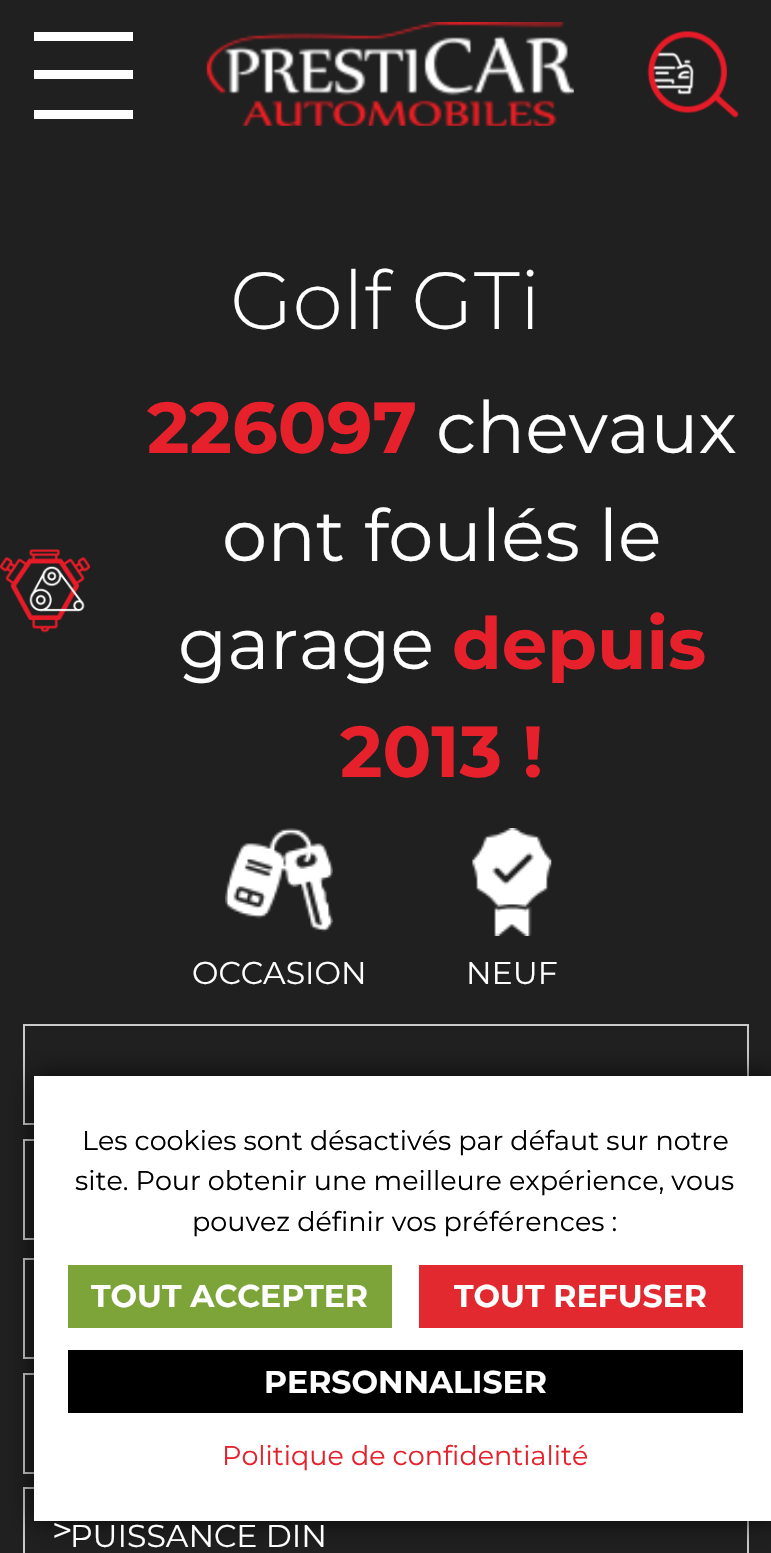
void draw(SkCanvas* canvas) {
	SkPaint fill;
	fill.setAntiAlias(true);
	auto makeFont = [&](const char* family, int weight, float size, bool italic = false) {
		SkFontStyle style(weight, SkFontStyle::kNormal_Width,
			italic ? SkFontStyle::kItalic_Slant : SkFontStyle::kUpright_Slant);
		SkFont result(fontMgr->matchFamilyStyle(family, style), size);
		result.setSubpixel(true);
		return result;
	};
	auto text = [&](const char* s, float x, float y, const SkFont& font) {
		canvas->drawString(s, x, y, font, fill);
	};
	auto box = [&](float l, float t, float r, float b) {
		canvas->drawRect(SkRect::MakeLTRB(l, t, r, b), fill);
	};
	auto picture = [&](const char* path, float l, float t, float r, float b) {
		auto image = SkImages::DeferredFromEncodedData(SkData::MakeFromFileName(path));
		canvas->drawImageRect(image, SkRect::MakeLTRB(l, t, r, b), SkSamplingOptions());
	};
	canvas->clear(0xFF202020);
	fill.setColor(0xFFFFFFFF);
	box(34, 32, 133, 41);
	box(34, 70, 133, 79);
	box(34, 110, 133, 119);
	picture("image0.png", 206, 22, 574, 126);
	picture("image1.png", 647, 31, 739, 118);
	picture("image2.png", 0, 549, 90, 633);
	picture("image3.png", 225, 828, 333, 932);
	picture("image4.png", 472, 828, 552, 936);
	fill.setStyle(SkPaint::kStroke_Style);
	fill.setStrokeWidth(2);
	fill.setColor(0xFFCACACA);
	canvas->drawRect(SkRect::MakeLTRB(24, 1025, 748, 1124), fill);
	canvas->drawRect(SkRect::MakeLTRB(24, 1140, 748, 1239), fill);
	canvas->drawRect(SkRect::MakeLTRB(24, 1259, 748, 1358), fill);
	canvas->drawRect(SkRect::MakeLTRB(24, 1374, 748, 1473), fill);
	canvas->drawRect(SkRect::MakeLTRB(24, 1488, 748, 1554), fill);
	fill.setStyle(SkPaint::kFill_Style);
	fill.setColor(0xBF000000);
	fill.setMaskFilter(SkMaskFilter::MakeBlur(kNormal_SkBlurStyle, 12.5f));
	canvas->drawRect(SkRect::MakeLTRB(34, 1076, 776, 1521), fill);
	fill.setMaskFilter(nullptr);
	fill.setColor(0xFFFFFFFF);
	box(34, 1076, 771, 1521);
	fill.setColor(0xFF7DA439);
	box(68, 1265, 392, 1328);
	fill.setColor(0xFFE2292F);
	box(419, 1265, 743, 1328);
	fill.setColor(0xFF000000);
	box(68, 1350, 743, 1413);
	auto font1 = makeFont("Montserrat", 300, 81);
	fill.setColor(0xFFFEFEFE);
	text("Golf GTi", 230, 329, font1);
	auto font2 = makeFont("Montserrat", 700, 72);
	fill.setColor(0xFFE6212C);
	text("226097", 147, 453, font2);
	auto font3 = makeFont("Montserrat", 400, 72);
	fill.setColor(0xFFFEFEFE);
	text("chevaux", 436, 453, font3);
	text("ont foulés le", 222, 561, font3);
	text("garage", 178, 669, font3);
	fill.setColor(0xFFE6212C);
	text("depuis", 452, 669, font2);
	text("2013 !", 340, 777, font2);
	auto font4 = makeFont("Montserrat", 400, 31.5f);
	fill.setColor(0xFFFEFEFE);
	text("OCCASION", 192, 984, font4);
	text("NEUF", 466, 984, font4);
	auto font5 = makeFont("Montserrat", 400, 36);
	text(">", 52, 1543, font5);
	text("PUISSANCE DIN", 70, 1547, font4);
	auto font6 = makeFont("Montserrat", 400, 27);
	fill.setColor(0xFF000000);
	text("Les cookies sont désactivés par défaut sur notre", 82, 1150, font6);
	text("site. Pour obtenir une meilleure expérience, vous", 75, 1190, font6);
	text("pouvez définir vos préférences :", 192, 1231, font6);
	auto font7 = makeFont("Montserrat", 700, 31.5f);
	fill.setColor(0xFFFEFEFE);
	text("TOUT ACCEPTER", 91, 1307, font7);
	text("TOUT REFUSER", 454, 1307, font7);
	text("PERSONNALISER", 264, 1393, font7);
	fill.setColor(0xFFE6212C);
	text("Politique de confidentialité", 222, 1465, font6);
}
